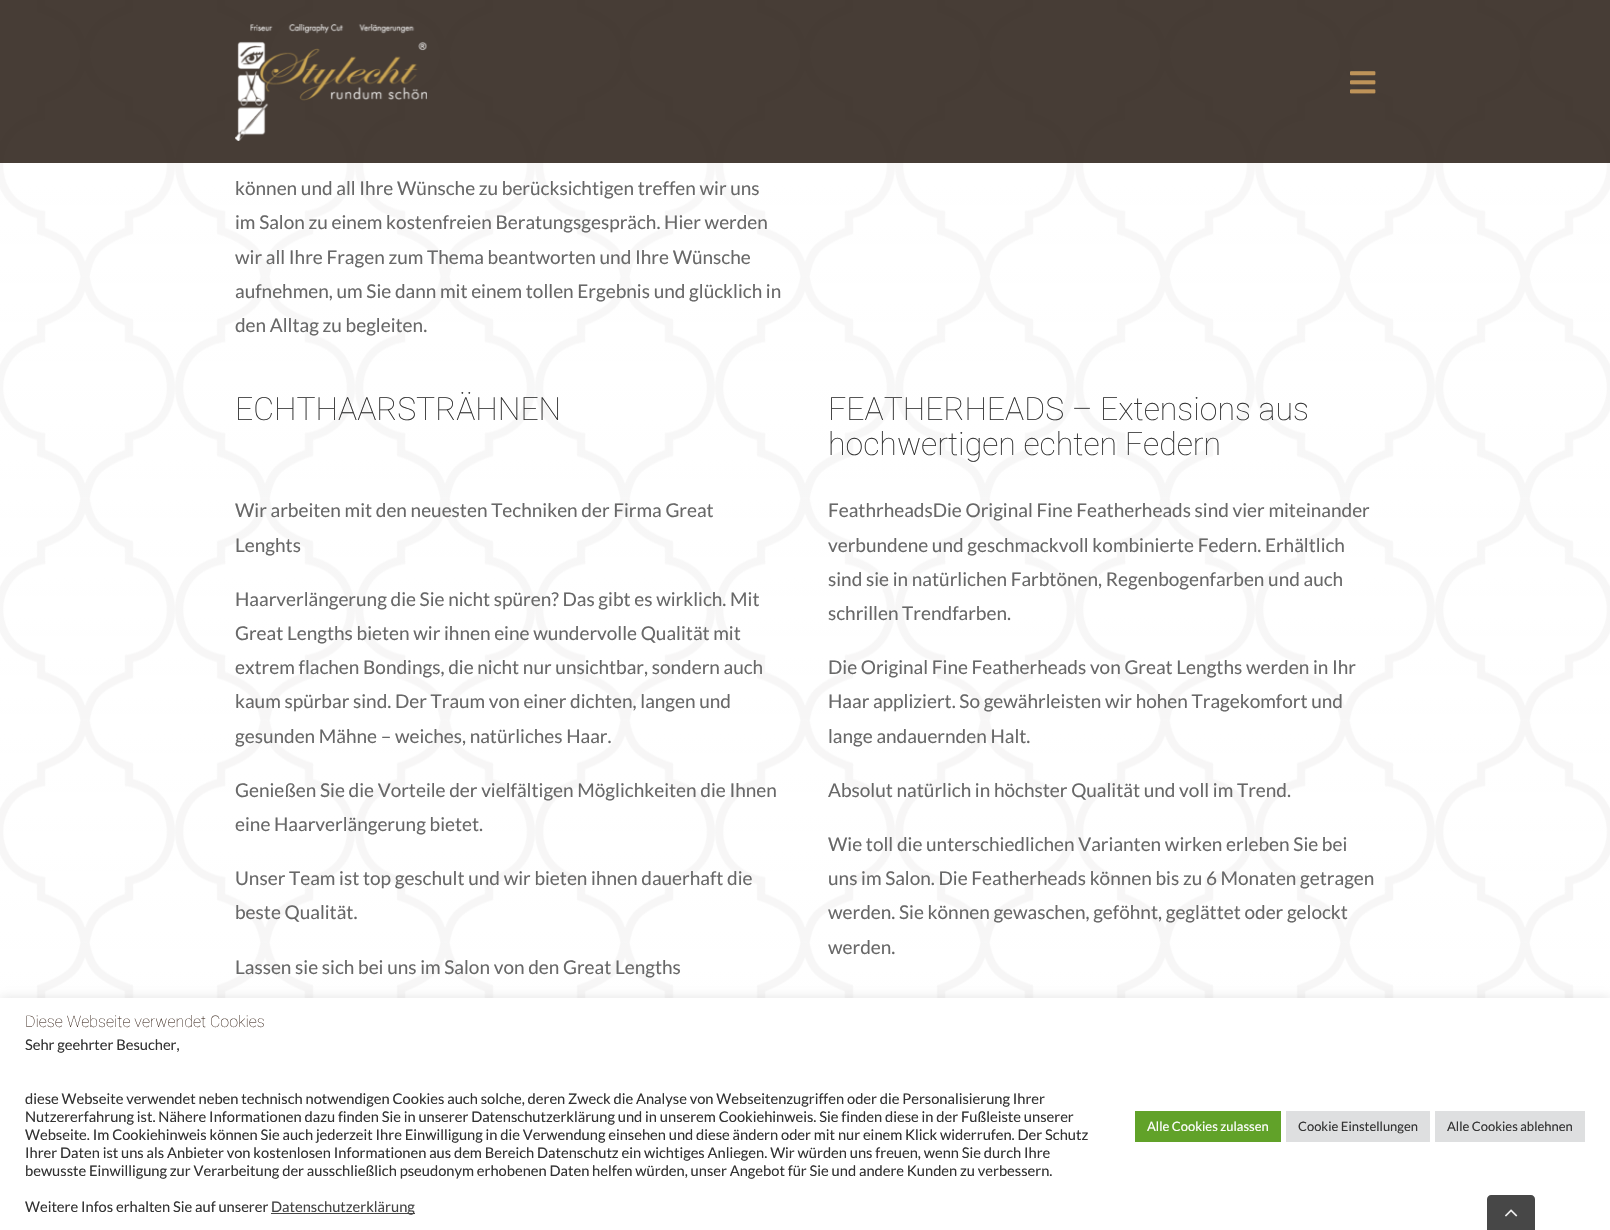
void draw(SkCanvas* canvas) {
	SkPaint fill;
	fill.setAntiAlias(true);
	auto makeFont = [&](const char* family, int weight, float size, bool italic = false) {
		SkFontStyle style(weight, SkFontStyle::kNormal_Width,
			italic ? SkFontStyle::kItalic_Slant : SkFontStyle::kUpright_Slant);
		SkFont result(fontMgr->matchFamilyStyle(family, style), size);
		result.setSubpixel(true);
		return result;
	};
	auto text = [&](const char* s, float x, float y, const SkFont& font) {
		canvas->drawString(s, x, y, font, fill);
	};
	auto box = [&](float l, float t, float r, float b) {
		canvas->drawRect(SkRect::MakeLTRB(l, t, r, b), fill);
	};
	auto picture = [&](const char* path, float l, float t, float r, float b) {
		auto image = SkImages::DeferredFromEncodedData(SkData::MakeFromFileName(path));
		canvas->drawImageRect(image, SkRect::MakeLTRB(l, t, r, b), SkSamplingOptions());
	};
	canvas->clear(0xFFFFFFFF);
	picture("image2.png", 0, 0, 1610, 998);
	fill.setColor(0xC9150900);
	box(0, 0, 1610, 163);
	picture("image0.png", 235, 24, 427, 141);
	picture("image1.png", 1350, 71, 1376, 94);
	fill.setColor(0x4DACABAB);
	fill.setMaskFilter(SkMaskFilter::MakeBlur(kNormal_SkBlurStyle, 5));
	canvas->drawRect(SkRect::MakeLTRB(0, 997, 1610, 1229), fill);
	fill.setMaskFilter(nullptr);
	fill.setColor(0xFFFFFFFF);
	box(0, 998, 1610, 1230);
	fill.setColor(0xFF444444);
	box(271, 1213, 415, 1214);
	fill.setColor(0xFF61A229);
	box(1135, 1111, 1281, 1142);
	fill.setColor(0xFFDEDFE0);
	box(1286, 1111, 1430, 1142);
	box(1435, 1111, 1585, 1142);
	fill.setColor(0xFF474747);
	canvas->drawPath(SkPathBuilder().moveTo(1491, 1195).lineTo(1531, 1195).cubicTo(1533, 1195, 1535, 1197, 1535, 1199).lineTo(1535, 1230).lineTo(1487, 1230).lineTo(1487, 1199).cubicTo(1487, 1197, 1489, 1195, 1491, 1195).close().detach(), fill);
	picture("image3.png", 1505, 1209, 1518, 1217);
	auto font1 = makeFont("Lato", 400, 19);
	fill.setColor(0xFF686868);
	text("können und all Ihre Wünsche zu berücksichtigen treffen wir uns", 235, 195, font1);
	text("im Salon zu einem kostenfreien Beratungsgespräch. Hier werden", 235, 229, font1);
	text("wir all Ihre Fragen zum Thema beantworten und Ihre Wünsche", 235, 264, font1);
	text("aufnehmen, um Sie dann mit einem tollen Ergebnis und glücklich in", 235, 298, font1);
	text("den Alltag zu begleiten.", 235, 332, font1);
	auto font2 = makeFont("Roboto", 100, 32);
	fill.setColor(0xFF333333);
	text("ECHTHAARSTRÄHNEN", 235, 420, font2);
	text("FEATHERHEADS – Extensions aus", 828, 420, font2);
	text("hochwertigen echten Federn", 828, 455, font2);
	fill.setColor(0xFF686868);
	text("Wir arbeiten mit den neuesten Techniken der Firma Great", 235, 517, font1);
	text("Lenghts", 235, 552, font1);
	text("Haarverlängerung die Sie nicht spüren? Das gibt es wirklich. Mit", 235, 606, font1);
	text("Great Lengths bieten wir ihnen eine wundervolle Qualität mit", 235, 640, font1);
	text("extrem flachen Bondings, die nicht nur unsichtbar, sondern auch", 235, 674, font1);
	text("kaum spürbar sind. Der Traum von einer dichten, langen und", 235, 708, font1);
	text("gesunden Mähne – weiches, natürliches Haar.", 235, 743, font1);
	text("Genießen Sie die Vorteile der vielfältigen Möglichkeiten die Ihnen", 235, 797, font1);
	text("eine Haarverlängerung bietet.", 235, 831, font1);
	text("Unser Team ist top geschult und wir bieten ihnen dauerhaft die", 235, 885, font1);
	text("beste Qualität.", 235, 919, font1);
	text("Lassen sie sich bei uns im Salon von den Great Lengths", 235, 974, font1);
	text("FeathrheadsDie Original Fine Featherheads sind vier miteinander", 828, 517, font1);
	text("verbundene und geschmackvoll kombinierte Federn. Erhältlich", 828, 552, font1);
	text("sind sie in natürlichen Farbtönen, Regenbogenfarben und auch", 828, 586, font1);
	text("schrillen Trendfarben.", 828, 620, font1);
	text("Die Original Fine Featherheads von Great Lengths werden in Ihr", 828, 674, font1);
	text("Haar appliziert. So gewährleisten wir hohen Tragekomfort und", 828, 708, font1);
	text("lange andauernden Halt.", 828, 743, font1);
	text("Absolut natürlich in höchster Qualität und voll im Trend.", 828, 797, font1);
	text("Wie toll die unterschiedlichen Varianten wirken erleben Sie bei", 828, 851, font1);
	text("uns im Salon. Die Featherheads können bis zu 6 Monaten getragen", 828, 885, font1);
	text("werden. Sie können gewaschen, geföhnt, geglättet oder gelockt", 828, 919, font1);
	text("werden.", 828, 954, font1);
	auto font3 = makeFont("Roboto", 100, 16);
	fill.setColor(0xFF3F2D23);
	text("Diese Webseite verwendet Cookies", 25, 1027, font3);
	auto font4 = makeFont("Lato", 400, 14.67f);
	fill.setColor(0xFF333333);
	text("Sehr geehrter Besucher,", 25, 1050, font4);
	text("diese Webseite verwendet neben technisch notwendigen Cookies auch solche, deren Zweck die Analyse von Webseitenzugriffen oder die Personalisierung Ihrer", 25, 1104, font4);
	text("Nutzererfahrung ist. Nähere Informationen dazu finden Sie in unserer Datenschutzerklärung und in unserem Cookiehinweis. Sie finden diese in der Fußleiste unserer", 25, 1122, font4);
	text("Webseite. Im Cookiehinweis können Sie auch jederzeit Ihre Einwilligung in die Verwendung einsehen und diese ändern oder mit nur einem Klick widerrufen. Der Schutz", 25, 1140, font4);
	text("Ihrer Daten ist uns als Anbieter von kostenlosen Informationen aus dem Bereich Datenschutz ein wichtiges Anliegen. Wir würden uns freuen, wenn Sie durch Ihre", 25, 1158, font4);
	text("bewusste Einwilligung zur Verarbeitung der ausschließlich pseudonym erhobenen Daten helfen würden, unser Angebot für Sie und andere Kunden zu verbessern.", 25, 1176, font4);
	text("Weitere Infos erhalten Sie auf unserer", 25, 1212, font4);
	fill.setColor(0xFF444444);
	text("Datenschutzerklärung", 271, 1212, font4);
	auto font5 = makeFont("Lato", 400, 13);
	fill.setColor(0xFFFFFFFF);
	text("Alle Cookies zulassen", 1147, 1131, font5);
	fill.setColor(0xFF333333);
	text("Cookie Einstellungen", 1298, 1131, font5);
	text("Alle Cookies ablehnen", 1447, 1131, font5);
}
